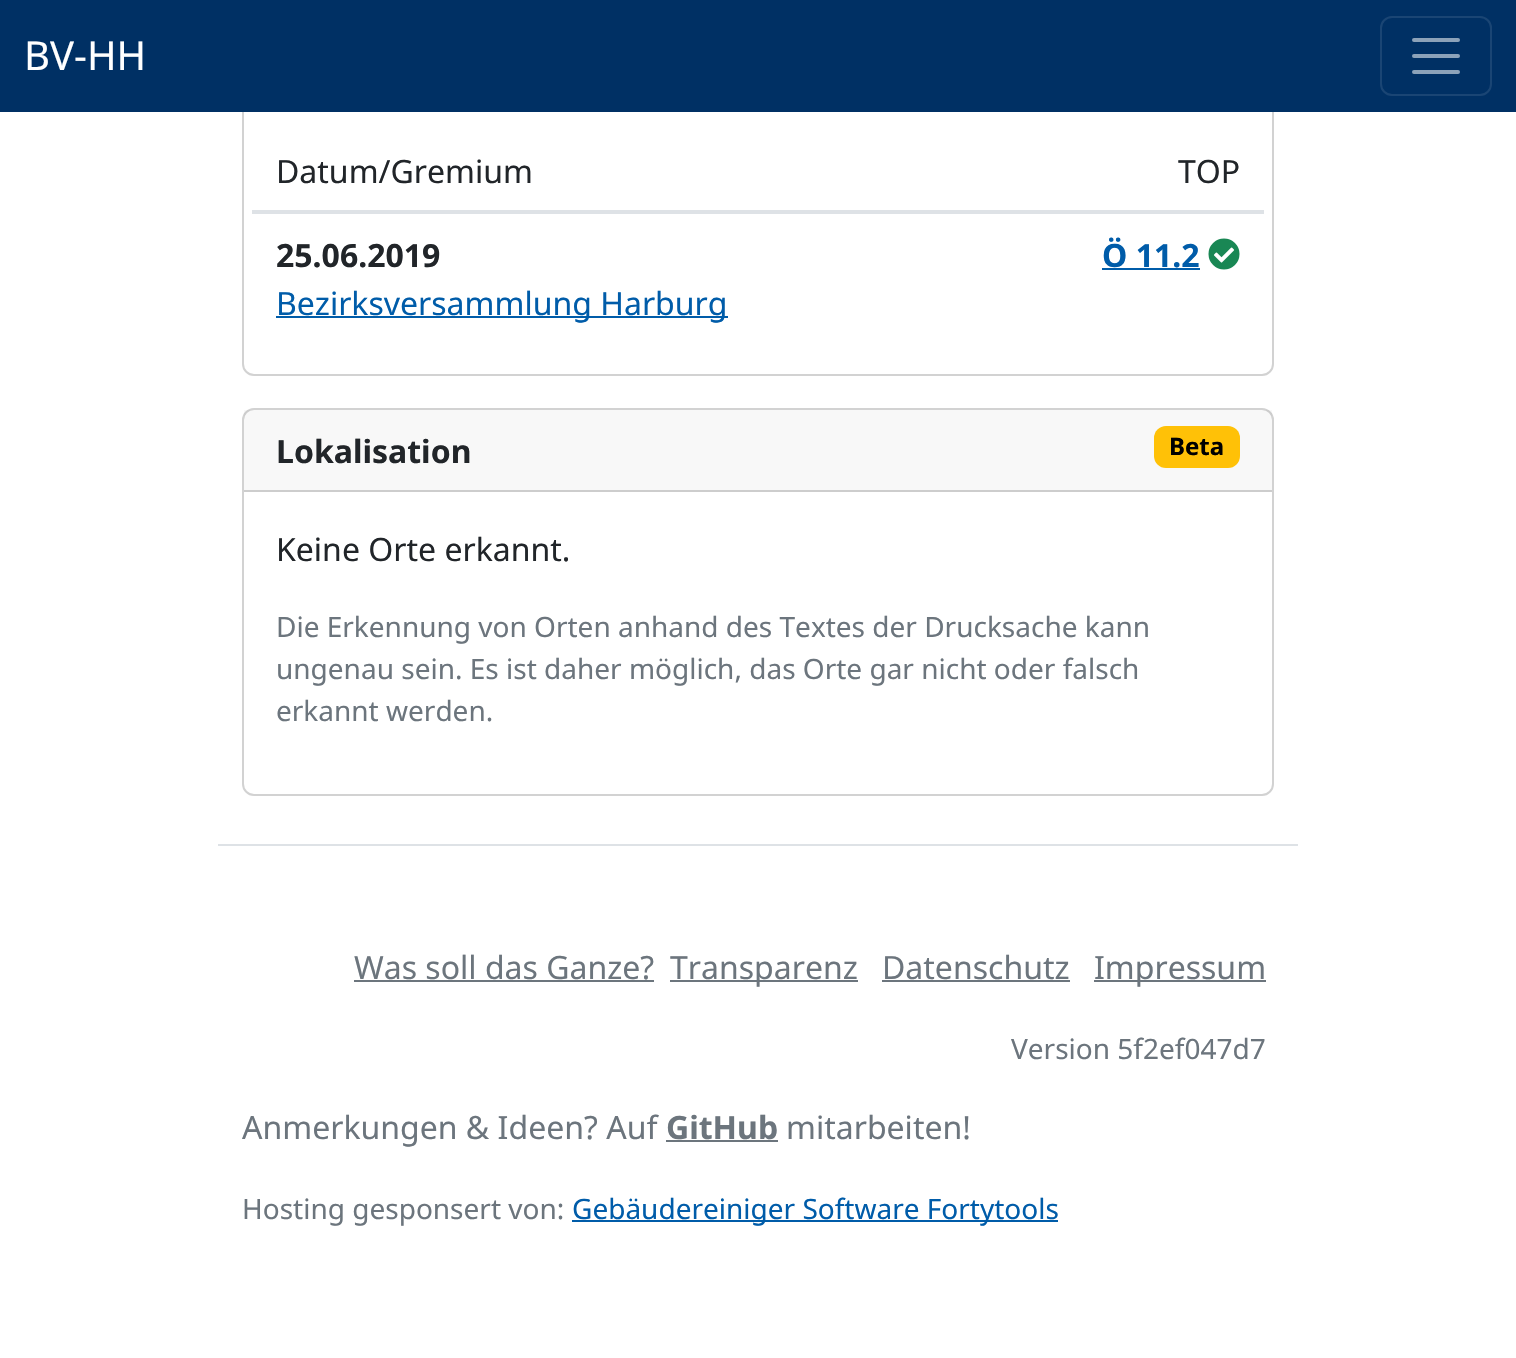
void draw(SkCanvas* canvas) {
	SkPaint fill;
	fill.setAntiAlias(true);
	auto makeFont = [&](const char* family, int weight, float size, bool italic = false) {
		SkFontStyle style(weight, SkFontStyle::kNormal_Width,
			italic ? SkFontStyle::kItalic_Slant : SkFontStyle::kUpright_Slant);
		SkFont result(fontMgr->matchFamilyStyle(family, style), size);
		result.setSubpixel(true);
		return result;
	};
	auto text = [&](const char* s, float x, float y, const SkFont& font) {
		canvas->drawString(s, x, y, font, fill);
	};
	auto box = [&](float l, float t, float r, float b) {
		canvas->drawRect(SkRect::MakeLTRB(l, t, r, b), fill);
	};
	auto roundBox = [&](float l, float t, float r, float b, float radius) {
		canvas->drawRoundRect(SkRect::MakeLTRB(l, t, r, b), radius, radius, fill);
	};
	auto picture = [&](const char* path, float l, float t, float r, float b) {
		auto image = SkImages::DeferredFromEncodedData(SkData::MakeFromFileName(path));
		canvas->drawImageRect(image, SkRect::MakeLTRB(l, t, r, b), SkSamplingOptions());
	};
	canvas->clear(0xFFFFFFFF);
	fill.setStyle(SkPaint::kStroke_Style);
	fill.setStrokeWidth(2);
	fill.setColor(0xFFD2D2D2);
	canvas->drawRoundRect(SkRect::MakeLTRB(243, 15, 1273, 375), 11, 11, fill);
	fill.setStyle(SkPaint::kFill_Style);
	fill.setColor(0xFF003064);
	box(0, 0, 1516, 112);
	fill.setStyle(SkPaint::kStroke_Style);
	fill.setColor(0xFF1A4574);
	canvas->drawRoundRect(SkRect::MakeLTRB(1381, 17, 1491, 95), 11, 11, fill);
	fill.setStrokeWidth(4);
	fill.setStrokeCap(SkPaint::kRound_Cap);
	fill.setColor(0xFF8CA2B9);
	canvas->drawPath(SkPathBuilder().moveTo(1414, 40).lineTo(1458, 40).moveTo(1414, 56).lineTo(1458, 56).moveTo(1414, 72).lineTo(1458, 72).detach(), fill);
	fill.setStyle(SkPaint::kFill_Style);
	fill.setColor(0xFFDEE2E6);
	box(252, 210, 1264, 212);
	box(252, 212, 1264, 214);
	fill.setColor(0xFF005CA9);
	box(1102, 268, 1200, 270);
	picture("image0.png", 1208, 238, 1240, 270);
	box(276, 316, 728, 318);
	fill.setStyle(SkPaint::kStroke_Style);
	fill.setStrokeWidth(2);
	fill.setStrokeCap(SkPaint::kButt_Cap);
	fill.setColor(0xFFD2D2D2);
	canvas->drawRoundRect(SkRect::MakeLTRB(243, 409, 1273, 795), 11, 11, fill);
	fill.setStyle(SkPaint::kFill_Style);
	fill.setColor(0x08212529);
	box(244, 410, 1272, 490);
	fill.setColor(0xFFCDCDCD);
	box(244, 490, 1272, 492);
	fill.setColor(0xFFFFC107);
	roundBox(1154, 426, 1240, 468, 12);
	fill.setColor(0xFFDEE2E6);
	box(218, 844, 1298, 846);
	fill.setColor(0xFF6C757D);
	box(354, 980, 654, 982);
	box(670, 980, 858, 982);
	box(882, 980, 1070, 982);
	box(1094, 980, 1266, 982);
	box(666, 1140, 778, 1142);
	fill.setColor(0xFF005CA9);
	box(572, 1220, 1058, 1222);
	auto font1 = makeFont("Noto Sans", 400, 40);
	fill.setColor(0xFFFFFFFF);
	text("BV-HH", 24, 70, font1);
	auto font2 = makeFont("Noto Sans", 400, 32);
	fill.setColor(0xFF212529);
	text("Datum/Gremium", 276, 183, font2);
	text("TOP", 1178, 183, font2);
	auto font3 = makeFont("Noto Sans", 700, 32);
	text("25.06.2019", 276, 267, font3);
	fill.setColor(0xFF005CA9);
	text("Ö 11.2", 1102, 267, font3);
	text("Bezirksversammlung Harburg", 276, 315, font2);
	fill.setColor(0xFF212529);
	text("Lokalisation", 276, 463, font3);
	auto font4 = makeFont("Noto Sans", 700, 24);
	fill.setColor(0xFF000000);
	text("Beta", 1169, 455, font4);
	fill.setColor(0xFF212529);
	text("Keine Orte erkannt.", 276, 561, font2);
	auto font5 = makeFont("Noto Sans", 400, 28);
	fill.setColor(0xFF6C757D);
	text("Die Erkennung von Orten anhand des Textes der Drucksache kann", 276, 637, font5);
	text("ungenau sein. Es ist daher möglich, das Orte gar nicht oder falsch", 276, 679, font5);
	text("erkannt werden.", 276, 721, font5);
	text("Was soll das Ganze?", 354, 979, font2);
	text("Transparenz", 670, 979, font2);
	text("Datenschutz", 882, 979, font2);
	text("Impressum", 1094, 979, font2);
	text("Version 5f2ef047d7", 1011, 1059, font5);
	text("Anmerkungen & Ideen? Auf", 242, 1139, font2);
	text("GitHub", 666, 1139, font3);
	text("mitarbeiten!", 786, 1139, font2);
	text("Hosting gesponsert von:", 242, 1219, font5);
	fill.setColor(0xFF005CA9);
	text("Gebäudereiniger Software Fortytools", 572, 1219, font5);
}
